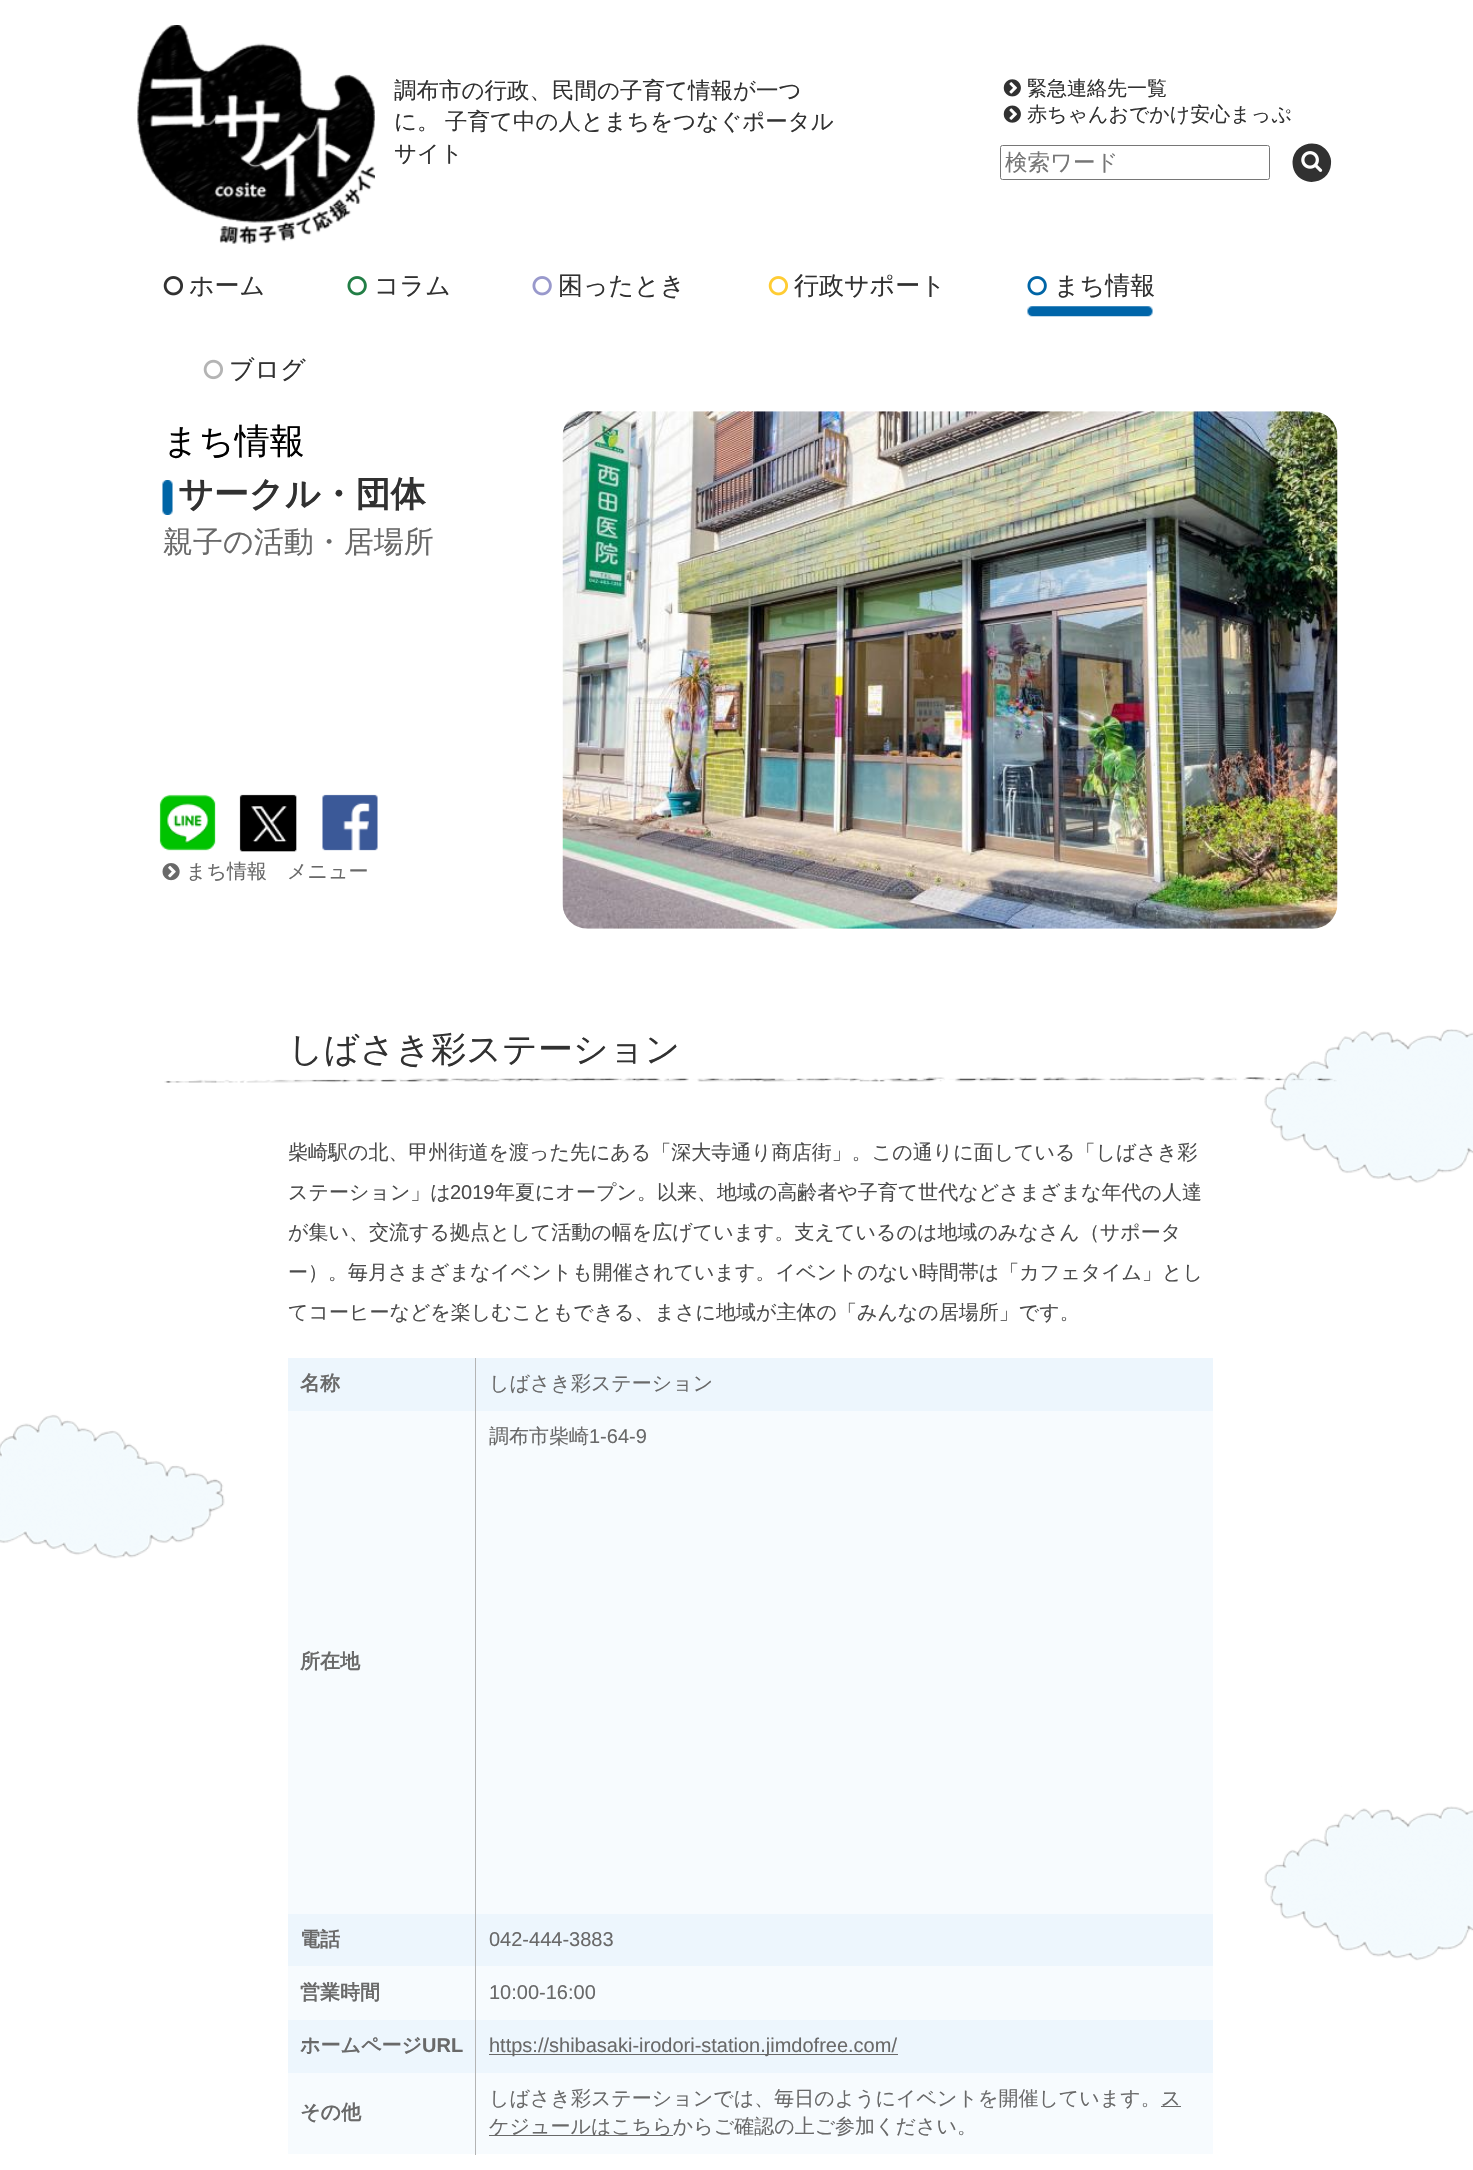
void draw(SkCanvas* canvas) {
	SkPaint fill;
	fill.setAntiAlias(true);
	auto makeFont = [&](const char* family, int weight, float size, bool italic = false) {
		SkFontStyle style(weight, SkFontStyle::kNormal_Width,
			italic ? SkFontStyle::kItalic_Slant : SkFontStyle::kUpright_Slant);
		SkFont result(fontMgr->matchFamilyStyle(family, style), size);
		result.setSubpixel(true);
		return result;
	};
	auto text = [&](const char* s, float x, float y, const SkFont& font) {
		canvas->drawString(s, x, y, font, fill);
	};
	auto box = [&](float l, float t, float r, float b) {
		canvas->drawRect(SkRect::MakeLTRB(l, t, r, b), fill);
	};
	auto picture = [&](const char* path, float l, float t, float r, float b) {
		auto image = SkImages::DeferredFromEncodedData(SkData::MakeFromFileName(path));
		canvas->drawImageRect(image, SkRect::MakeLTRB(l, t, r, b), SkSamplingOptions());
	};
	canvas->clear(0xFFFFFFFF);
	picture("image0.png", 137, 25, 375, 244);
	picture("image1.png", 1003, 79, 1021, 97);
	picture("image2.png", 1003, 105, 1021, 123);
	fill.setStyle(SkPaint::kStroke_Style);
	fill.setStrokeWidth(1);
	fill.setColor(0xFF767676);
	canvas->drawRoundRect(SkRect::MakeLTRB(1000.5f, 145.5f, 1269.5f, 179.5f), 2, 2, fill);
	fill.setStyle(SkPaint::kFill_Style);
	fill.setColor(0xFF313131);
	canvas->drawPath(SkPathBuilder().moveTo(1328.5f, 153).cubicTo(1330.5f, 156.5f, 1331.5f, 160, 1331, 164).cubicTo(1330, 183, 1304.5f, 188.5f, 1295, 172.5f).cubicTo(1293, 169, 1292.5f, 165, 1292.5f, 161.5f).cubicTo(1293.5f, 142.5f, 1319, 136.5f, 1328.5f, 153).close().detach(), fill);
	picture("image3.png", 1301, 151, 1323, 172);
	picture("image4.png", 163, 276, 183, 296);
	picture("image5.png", 347, 276, 367, 296);
	picture("image6.png", 532, 276, 552, 296);
	picture("image7.png", 768, 276, 788, 296);
	picture("image8.png", 1027, 306, 1153, 317);
	picture("image9.png", 1027, 276, 1047, 296);
	picture("image10.png", 203, 359, 223, 380);
	picture("image11.png", 162, 480, 173, 515);
	picture("image12.png", 562, 411, 1338, 929);
	picture("image13.png", 159, 794, 216, 851);
	picture("image14.png", 239, 794, 297, 852);
	picture("image15.png", 322, 794, 378, 851);
	picture("image16.png", 162, 863, 180, 881);
	picture("image17.png", 0, 1029, 1473, 1961);
	picture("image18.png", 164, 1077, 1337, 1083);
	fill.setColor(0xFFEDF6FD);
	box(288, 1358, 1213, 1411);
	fill.setColor(0xFFF7FBFE);
	box(288, 1411, 1213, 1914);
	fill.setColor(0xFFEDF6FD);
	box(288, 1914, 1213, 1966);
	fill.setColor(0xFFF7FBFE);
	box(288, 1966, 1213, 2020);
	fill.setColor(0xFFEDF6FD);
	box(288, 2020, 1213, 2073);
	fill.setColor(0xFF696969);
	box(489, 2054, 898, 2055);
	fill.setColor(0xFFF7FBFE);
	box(288, 2073, 1213, 2154);
	fill.setColor(0xFFB4B4B4);
	box(475, 1358, 476, 2155);
	fill.setColor(0xFF696969);
	box(1161, 2106, 1181, 2107);
	box(489, 2135, 673, 2136);
	auto font1 = makeFont("WenQuanYi Zen Hei", 500, 22.5f);
	fill.setColor(0xFF313131);
	text("調布市の行政、民間の子育て情報が一つ", 394, 98, font1);
	text("に。", 394, 129, font1);
	text("子育て中の人とまちをつなぐポータル", 445, 129, font1);
	text("サイト", 394, 161, font1);
	auto font2 = makeFont("WenQuanYi Zen Hei", 500, 20);
	text("緊急連絡先一覧", 1027, 95, font2);
	text("赤ちゃんおでかけ安心まっぷ", 1027, 121, font2);
	fill.setColor(0xFF757575);
	text("検索ワード", 1005, 170, font1);
	auto font3 = makeFont("WenQuanYi Zen Hei", 500, 25);
	fill.setColor(0xFF313131);
	text("ホーム", 189, 294, font3);
	text("コラム", 374, 294, font3);
	text("困ったとき", 558, 294, font3);
	text("行政サポート", 794, 294, font3);
	text("まち情報", 1054, 294, font3);
	text("ブログ", 229, 378, font3);
	auto font4 = makeFont("WenQuanYi Zen Hei", 500, 35);
	fill.setColor(0xFF000000);
	text("まち情報", 163, 453, font4);
	auto font5 = makeFont("WenQuanYi Zen Hei", 700, 35);
	fill.setColor(0xFF313131);
	text("サークル・団体", 178, 506, font5);
	auto font6 = makeFont("WenQuanYi Zen Hei", 500, 30);
	fill.setColor(0xFF696969);
	text("親子の活動・居場所", 163, 552, font6);
	text("まち情報", 186, 878, font2);
	text("メニュー", 287, 878, font2);
	fill.setColor(0xFF313131);
	text("しばさき彩ステーション", 288, 1061, font4);
	fill.setColor(0xFF4B4B4B);
	text("柴崎駅の北、甲州街道を渡った先にある「深大寺通り商店街」。この通りに面している「しばさき彩", 288, 1159, font2);
	text("ステーション」は", 288, 1199, font2);
	auto font7 = makeFont("Liberation Sans", 400, 20);
	text("2019", 450, 1199, font7);
	text("年夏にオープン。以来、地域の高齢者や子育て世代などさまざまな年代の人達", 495, 1199, font2);
	text("が集い、交流する拠点として活動の幅を広げています。支えているのは地域のみなさん（サポータ", 288, 1239, font2);
	text("ー）。毎月さまざまなイベントも開催されています。イベントのない時間帯は「カフェタイム」とし", 288, 1279, font2);
	text("てコーヒーなどを楽しむこともできる、まさに地域が主体の「みんなの居場所」です。", 288, 1319, font2);
	auto font8 = makeFont("WenQuanYi Zen Hei", 700, 20);
	fill.setColor(0xFF696969);
	text("名称", 300, 1390, font8);
	text("しばさき彩ステーション", 489, 1390, font2);
	text("調布市柴崎", 489, 1443, font2);
	text("1-64-9", 589, 1443, font7);
	text("所在地", 300, 1668, font8);
	text("電話", 300, 1946, font8);
	text("042-444-3883", 489, 1946, font7);
	text("営業時間", 300, 1999, font8);
	text("10:00-16:00", 489, 1999, font7);
	text("ホームページ", 300, 2052, font8);
	auto font9 = makeFont("Liberation Sans", 700, 20);
	text("URL", 422, 2052, font9);
	text("https://shibasaki-irodori-station.jimdofree.com/", 489, 2052, font7);
	text("その他", 300, 2119, font8);
	text("しばさき彩ステーションでは、毎日のようにイベントを開催しています。ス", 489, 2105, font2);
	text("ケジュールはこちらからご確認の上ご参加ください。", 489, 2133, font2);
}
